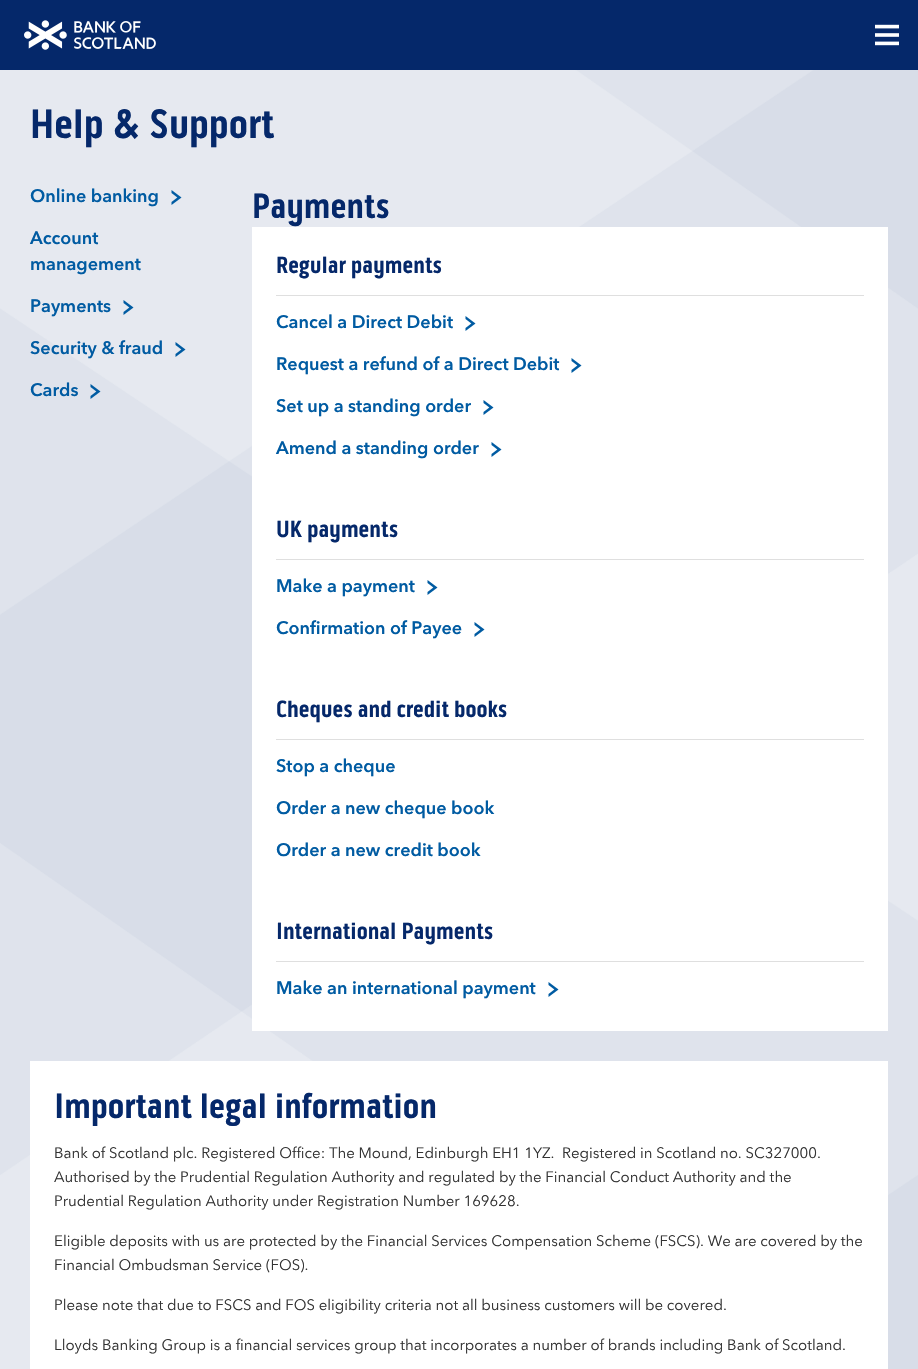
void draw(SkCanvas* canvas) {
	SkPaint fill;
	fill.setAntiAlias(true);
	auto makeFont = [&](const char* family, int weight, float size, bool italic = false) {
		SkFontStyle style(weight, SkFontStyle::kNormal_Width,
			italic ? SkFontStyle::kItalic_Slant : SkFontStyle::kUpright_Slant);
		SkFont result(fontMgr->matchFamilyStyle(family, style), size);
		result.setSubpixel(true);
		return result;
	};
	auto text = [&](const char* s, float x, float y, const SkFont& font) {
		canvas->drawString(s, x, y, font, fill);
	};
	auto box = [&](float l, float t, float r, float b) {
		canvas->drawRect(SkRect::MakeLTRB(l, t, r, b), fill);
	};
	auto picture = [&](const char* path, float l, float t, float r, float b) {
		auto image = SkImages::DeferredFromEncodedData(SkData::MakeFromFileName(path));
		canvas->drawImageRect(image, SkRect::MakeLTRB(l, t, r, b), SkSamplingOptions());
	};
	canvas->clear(0xFFFFFFFF);
	picture("image0.png", 0, 70, 918, 1369);
	fill.setColor(0xFF05286A);
	box(0, 0, 918, 70);
	picture("image1.png", 24, 20, 156, 50);
	picture("image2.png", 875, 24, 899, 46);
	picture("image3.png", 171, 190, 182, 205);
	picture("image3.png", 123, 300, 134, 315);
	picture("image3.png", 175, 342, 186, 357);
	picture("image4.png", 90, 384, 101, 399);
	fill.setColor(0xFFFFFFFF);
	box(252, 227, 888, 1031);
	fill.setColor(0xFFDFDFDF);
	box(276, 295, 864, 296);
	picture("image5.png", 465, 316, 476, 331);
	picture("image5.png", 571, 358, 582, 373);
	picture("image5.png", 483, 400, 494, 415);
	picture("image5.png", 491, 442, 502, 457);
	box(276, 559, 864, 560);
	picture("image5.png", 427, 580, 438, 595);
	picture("image5.png", 474, 622, 485, 637);
	box(276, 739, 864, 740);
	box(276, 961, 864, 962);
	picture("image5.png", 548, 982, 559, 997);
	fill.setColor(0xFFFFFFFF);
	box(30, 1061, 888, 1369);
	auto font1 = makeFont("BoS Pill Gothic", 700, 42);
	fill.setColor(0xFF05286A);
	text("Help & Support", 30, 138, font1);
	auto font2 = makeFont("Avenir Next", 600, 18);
	fill.setColor(0xFF005BA2);
	text("Online banking", 30, 202, font2);
	text("Account", 30, 244, font2);
	text("management", 30, 270, font2);
	text("Payments", 30, 312, font2);
	text("Security & fraud", 30, 354, font2);
	text("Cards", 30, 396, font2);
	auto font3 = makeFont("BoS Pill Gothic", 700, 36);
	fill.setColor(0xFF05286A);
	text("Payments", 252, 218, font3);
	auto font4 = makeFont("BoS Pill Gothic", 700, 24);
	text("Regular payments", 276, 273, font4);
	fill.setColor(0xFF005BA2);
	text("Cancel a Direct Debit", 276, 328, font2);
	text("Request a refund of a Direct Debit", 276, 370, font2);
	text("Set up a standing order", 276, 412, font2);
	text("Amend a standing order", 276, 454, font2);
	fill.setColor(0xFF05286A);
	text("UK payments", 276, 537, font4);
	fill.setColor(0xFF005BA2);
	text("Make a payment", 276, 592, font2);
	text("Confirmation of Payee", 276, 634, font2);
	fill.setColor(0xFF05286A);
	text("Cheques and credit books", 276, 717, font4);
	fill.setColor(0xFF005BA2);
	text("Stop a cheque", 276, 772, font2);
	text("Order a new cheque book", 276, 814, font2);
	text("Order a new credit book", 276, 856, font2);
	fill.setColor(0xFF05286A);
	text("International Payments", 276, 939, font4);
	fill.setColor(0xFF005BA2);
	text("Make an international payment", 276, 994, font2);
	fill.setColor(0xFF05286A);
	text("Important legal information", 54, 1118, font3);
	auto font5 = makeFont("Avenir Next", 400, 15);
	fill.setColor(0xFF333333);
	text("Bank of Scotland plc. Registered Office: The Mound, Edinburgh EH1 1YZ.  Registered in Scotland no. SC327000.", 54, 1158, font5);
	text("Authorised by the Prudential Regulation Authority and regulated by the Financial Conduct Authority and the", 54, 1182, font5);
	text("Prudential Regulation Authority under Registration Number 169628.", 54, 1206, font5);
	text("Eligible deposits with us are protected by the Financial Services Compensation Scheme (FSCS). We are covered by the", 54, 1246, font5);
	text("Financial Ombudsman Service (FOS).", 54, 1270, font5);
	text("Please note that due to FSCS and FOS eligibility criteria not all business customers will be covered.", 54, 1310, font5);
	text("Lloyds Banking Group is a financial services group that incorporates a number of brands including Bank of Scotland.", 54, 1350, font5);
}
